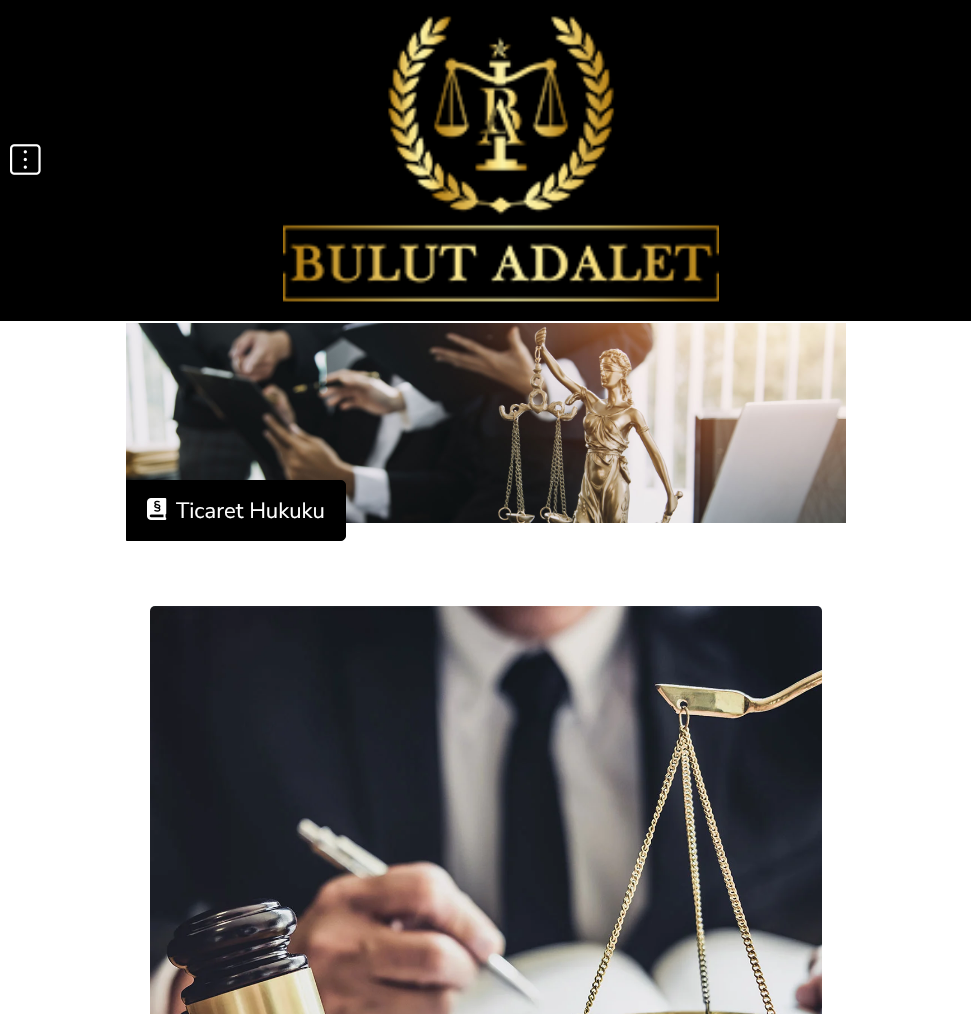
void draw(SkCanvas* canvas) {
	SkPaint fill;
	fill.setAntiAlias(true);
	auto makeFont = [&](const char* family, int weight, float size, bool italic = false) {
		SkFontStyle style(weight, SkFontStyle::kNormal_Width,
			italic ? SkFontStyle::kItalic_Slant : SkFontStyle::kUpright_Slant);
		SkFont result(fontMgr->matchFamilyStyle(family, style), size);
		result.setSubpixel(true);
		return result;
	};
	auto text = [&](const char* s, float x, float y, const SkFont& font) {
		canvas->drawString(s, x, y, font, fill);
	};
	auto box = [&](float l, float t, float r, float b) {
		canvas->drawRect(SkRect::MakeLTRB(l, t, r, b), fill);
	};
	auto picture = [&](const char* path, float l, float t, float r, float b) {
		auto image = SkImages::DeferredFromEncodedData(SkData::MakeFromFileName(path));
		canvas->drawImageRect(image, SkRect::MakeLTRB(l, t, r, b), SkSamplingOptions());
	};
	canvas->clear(0xFFFFFFFF);
	fill.setColor(0xFF000000);
	box(0, 0, 971, 321);
	picture("image0.png", 10, 144, 41, 175);
	picture("image1.png", 283, 16, 719, 302);
	picture("image2.png", 126, 323, 846, 523);
	canvas->drawPath(SkPathBuilder().moveTo(126.5f, 480.5f).lineTo(341, 480.5f).cubicTo(343.5f, 480.5f, 345.5f, 482.5f, 345.5f, 485).lineTo(345.5f, 536).cubicTo(345.5f, 538.5f, 343.5f, 540.5f, 341, 540.5f).lineTo(126.5f, 540.5f).close().detach(), fill);
	fill.setStyle(SkPaint::kStroke_Style);
	fill.setStrokeWidth(1);
	canvas->drawPath(SkPathBuilder().moveTo(126.5f, 480.5f).lineTo(341, 480.5f).cubicTo(343.5f, 480.5f, 345.5f, 482.5f, 345.5f, 485).lineTo(345.5f, 536).cubicTo(345.5f, 538.5f, 343.5f, 540.5f, 341, 540.5f).lineTo(126.5f, 540.5f).close().detach(), fill);
	picture("image3.png", 147, 498, 167, 520);
	picture("image4.png", 150, 606, 822, 1014);
	auto font1 = makeFont("Nunito Sans", 400, 22);
	fill.setStyle(SkPaint::kFill_Style);
	fill.setColor(0xFFFFFFFF);
	text("Ticaret Hukuku", 176, 518, font1);
}
